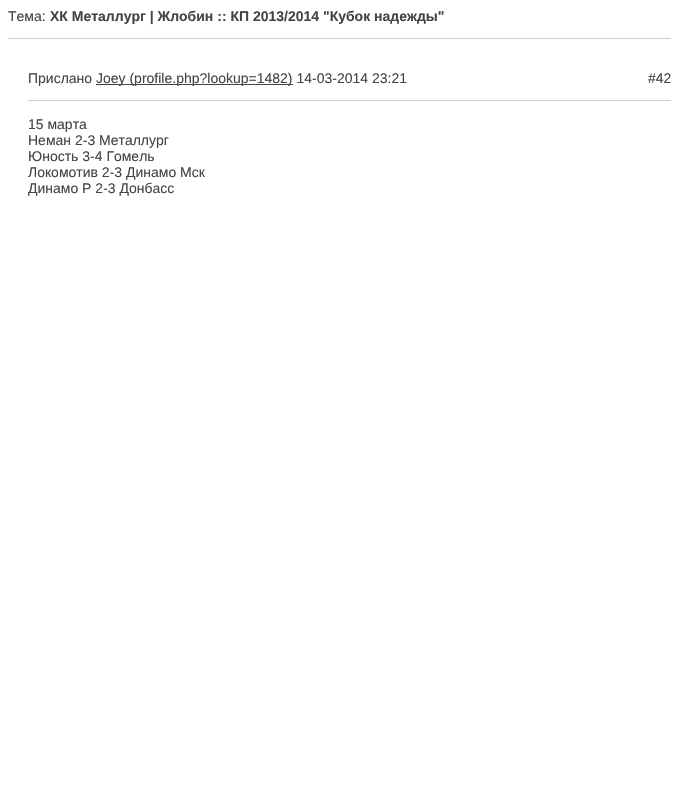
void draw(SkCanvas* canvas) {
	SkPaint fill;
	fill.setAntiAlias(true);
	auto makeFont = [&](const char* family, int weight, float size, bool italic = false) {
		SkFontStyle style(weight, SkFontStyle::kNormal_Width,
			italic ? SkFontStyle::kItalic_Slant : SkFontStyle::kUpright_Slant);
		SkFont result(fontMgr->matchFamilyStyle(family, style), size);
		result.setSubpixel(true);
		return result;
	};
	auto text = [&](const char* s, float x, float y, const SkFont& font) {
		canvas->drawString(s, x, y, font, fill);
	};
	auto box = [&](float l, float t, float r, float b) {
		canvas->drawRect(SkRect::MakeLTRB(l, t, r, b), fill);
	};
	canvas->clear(0xFFFFFFFF);
	fill.setColor(0xFFCCCCCC);
	box(8, 38, 671, 39);
	fill.setColor(0xFF444444);
	box(96, 84, 293, 85);
	fill.setColor(0xFFCCCCCC);
	box(28, 100, 671, 101);
	auto font1 = makeFont("Liberation Sans", 400, 14);
	fill.setColor(0xFF444444);
	text("Тема:", 8, 21, font1);
	auto font2 = makeFont("Liberation Sans", 700, 14);
	text("ХК Металлург | Жлобин :: КП 2013/2014 \"Кубок надежды\"", 50, 21, font2);
	text("Прислано", 28, 83, font1);
	text("Joey (profile.php?lookup=1482) 14-03-2014 23:21", 96, 83, font1);
	text("#42", 648, 83, font1);
	text("15 марта", 28, 129, font1);
	text("Неман 2-3 Металлург", 28, 145, font1);
	text("Юность 3-4 Гомель", 28, 161, font1);
	text("Локомотив 2-3 Динамо Мcк", 28, 177, font1);
	text("Динамо Р 2-3 Донбасс", 28, 193, font1);
}
